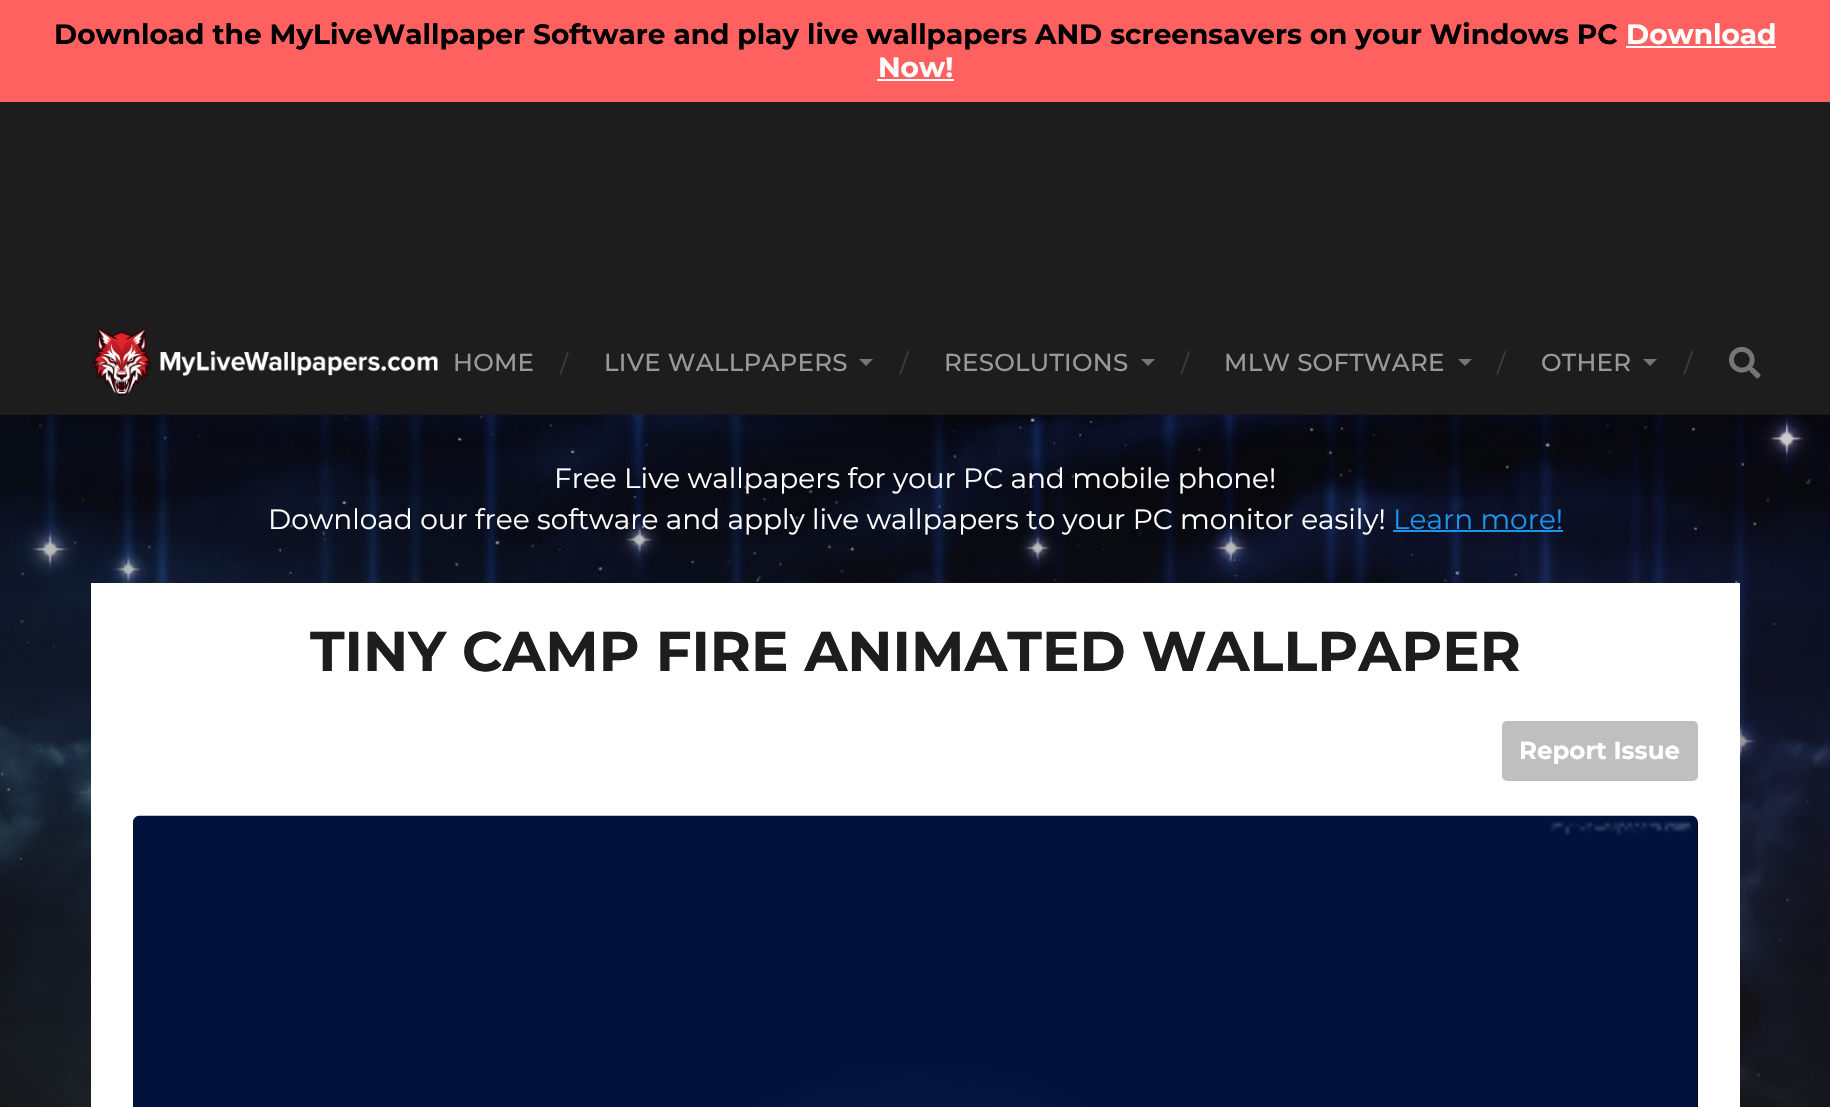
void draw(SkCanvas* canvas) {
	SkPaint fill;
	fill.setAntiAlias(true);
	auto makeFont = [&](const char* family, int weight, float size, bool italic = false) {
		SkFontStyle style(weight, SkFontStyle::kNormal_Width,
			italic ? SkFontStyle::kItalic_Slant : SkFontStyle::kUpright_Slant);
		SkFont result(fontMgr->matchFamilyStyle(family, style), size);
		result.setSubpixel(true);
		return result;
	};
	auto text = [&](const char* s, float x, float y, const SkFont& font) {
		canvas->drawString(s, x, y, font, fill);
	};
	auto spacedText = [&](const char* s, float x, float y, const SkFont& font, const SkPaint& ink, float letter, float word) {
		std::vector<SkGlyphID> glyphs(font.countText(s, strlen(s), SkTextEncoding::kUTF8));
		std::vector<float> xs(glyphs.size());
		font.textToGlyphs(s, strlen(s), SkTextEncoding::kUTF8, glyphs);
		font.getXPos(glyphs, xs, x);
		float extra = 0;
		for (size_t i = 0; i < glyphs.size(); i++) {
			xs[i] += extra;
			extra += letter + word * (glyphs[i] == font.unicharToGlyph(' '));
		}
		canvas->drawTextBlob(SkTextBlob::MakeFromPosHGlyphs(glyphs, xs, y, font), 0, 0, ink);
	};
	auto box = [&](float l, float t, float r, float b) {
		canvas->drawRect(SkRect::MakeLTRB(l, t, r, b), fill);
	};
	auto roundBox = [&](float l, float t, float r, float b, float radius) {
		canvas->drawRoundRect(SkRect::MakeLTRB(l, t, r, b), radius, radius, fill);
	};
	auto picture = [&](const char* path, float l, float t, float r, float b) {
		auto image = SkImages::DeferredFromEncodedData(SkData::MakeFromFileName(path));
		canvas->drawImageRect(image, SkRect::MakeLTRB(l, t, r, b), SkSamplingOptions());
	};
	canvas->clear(0xFF1D1D1D);
	fill.setColor(0xFFFF6161);
	box(0, 0, 1830, 102);
	fill.setColor(0xFFFFFFFF);
	box(1626, 46, 1776, 48);
	box(877, 79, 954, 81);
	picture("image0.png", 91, 327, 438, 396);
	fill.setColor(0xFF757575);
	canvas->drawPath(SkPathBuilder().moveTo(859, 359).lineTo(873, 359).lineTo(866, 366).close().detach(), fill);
	canvas->drawPath(SkPathBuilder().moveTo(1141, 359).lineTo(1155, 359).lineTo(1148, 366).close().detach(), fill);
	canvas->drawPath(SkPathBuilder().moveTo(1458, 359).lineTo(1472, 359).lineTo(1465, 366).close().detach(), fill);
	canvas->drawPath(SkPathBuilder().moveTo(1643, 359).lineTo(1657, 359).lineTo(1650, 366).close().detach(), fill);
	picture("image1.png", 1729, 346, 1761, 379);
	picture("image2.png", 0, 414, 1830, 1107);
	fill.setColor(0xFF1B96E8);
	box(1393, 530, 1563, 532);
	fill.setColor(0xFFFFFFFF);
	box(91, 583, 1740, 1107);
	fill.setColor(0xFFBFBFBF);
	roundBox(1502, 721, 1698, 781, 5);
	fill.setColor(0xFF000000);
	roundBox(133, 816, 1698, 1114, 7);
	picture("image3.png", 133, 815, 1698, 1107);
	auto font1 = makeFont("Montserrat", 700, 28);
	text("Download the MyLiveWallpaper Software and play live wallpapers AND screensavers on your Windows PC", 54, 44, font1);
	fill.setColor(0xFFFFFFFF);
	text("Download", 1626, 44, font1);
	text("Now!", 878, 77, font1);
	auto font2 = makeFont("Montserrat", 500, 24.5f);
	fill.setColor(0xFF999999);
	spacedText("HOME", 453, 371, font2, fill, 0.25f, 0);
	auto font3 = makeFont("Montserrat", 400, 24.5f);
	fill.setColor(0xFF3D3D3D);
	text("/", 560, 372, font3);
	fill.setColor(0xFF999999);
	spacedText("LIVE WALLPAPERS", 604, 371, font2, fill, 0.25f, 0);
	fill.setColor(0xFF3D3D3D);
	text("/", 900, 372, font3);
	fill.setColor(0xFF999999);
	spacedText("RESOLUTIONS", 944, 371, font2, fill, 0.25f, 0);
	fill.setColor(0xFF3D3D3D);
	text("/", 1181, 372, font3);
	fill.setColor(0xFF999999);
	spacedText("MLW SOFTWARE", 1224, 371, font2, fill, 0.25f, 0);
	fill.setColor(0xFF3D3D3D);
	text("/", 1497, 372, font3);
	fill.setColor(0xFF999999);
	spacedText("OTHER", 1541, 371, font2, fill, 0.25f, 0);
	fill.setColor(0xFF3D3D3D);
	text("/", 1684, 372, font3);
	auto font4 = makeFont("Montserrat", 400, 28);
	fill.setColor(0xFFFFFFFF);
	text("Free Live wallpapers for your PC and mobile phone!", 554, 488, font4);
	text("Download our free software and apply live wallpapers to your PC monitor easily!", 268, 529, font4);
	fill.setColor(0xFF1B96E8);
	text("Learn more!", 1393, 529, font4);
	auto font5 = makeFont("Montserrat", 700, 56);
	fill.setColor(0xFF1D1D1D);
	text("TINY CAMP FIRE ANIMATED WALLPAPER", 310, 671, font5);
	auto font6 = makeFont("Montserrat", 700, 24.5f);
	fill.setColor(0xFFFFFFFF);
	text("Report Issue", 1519, 759, font6);
}
